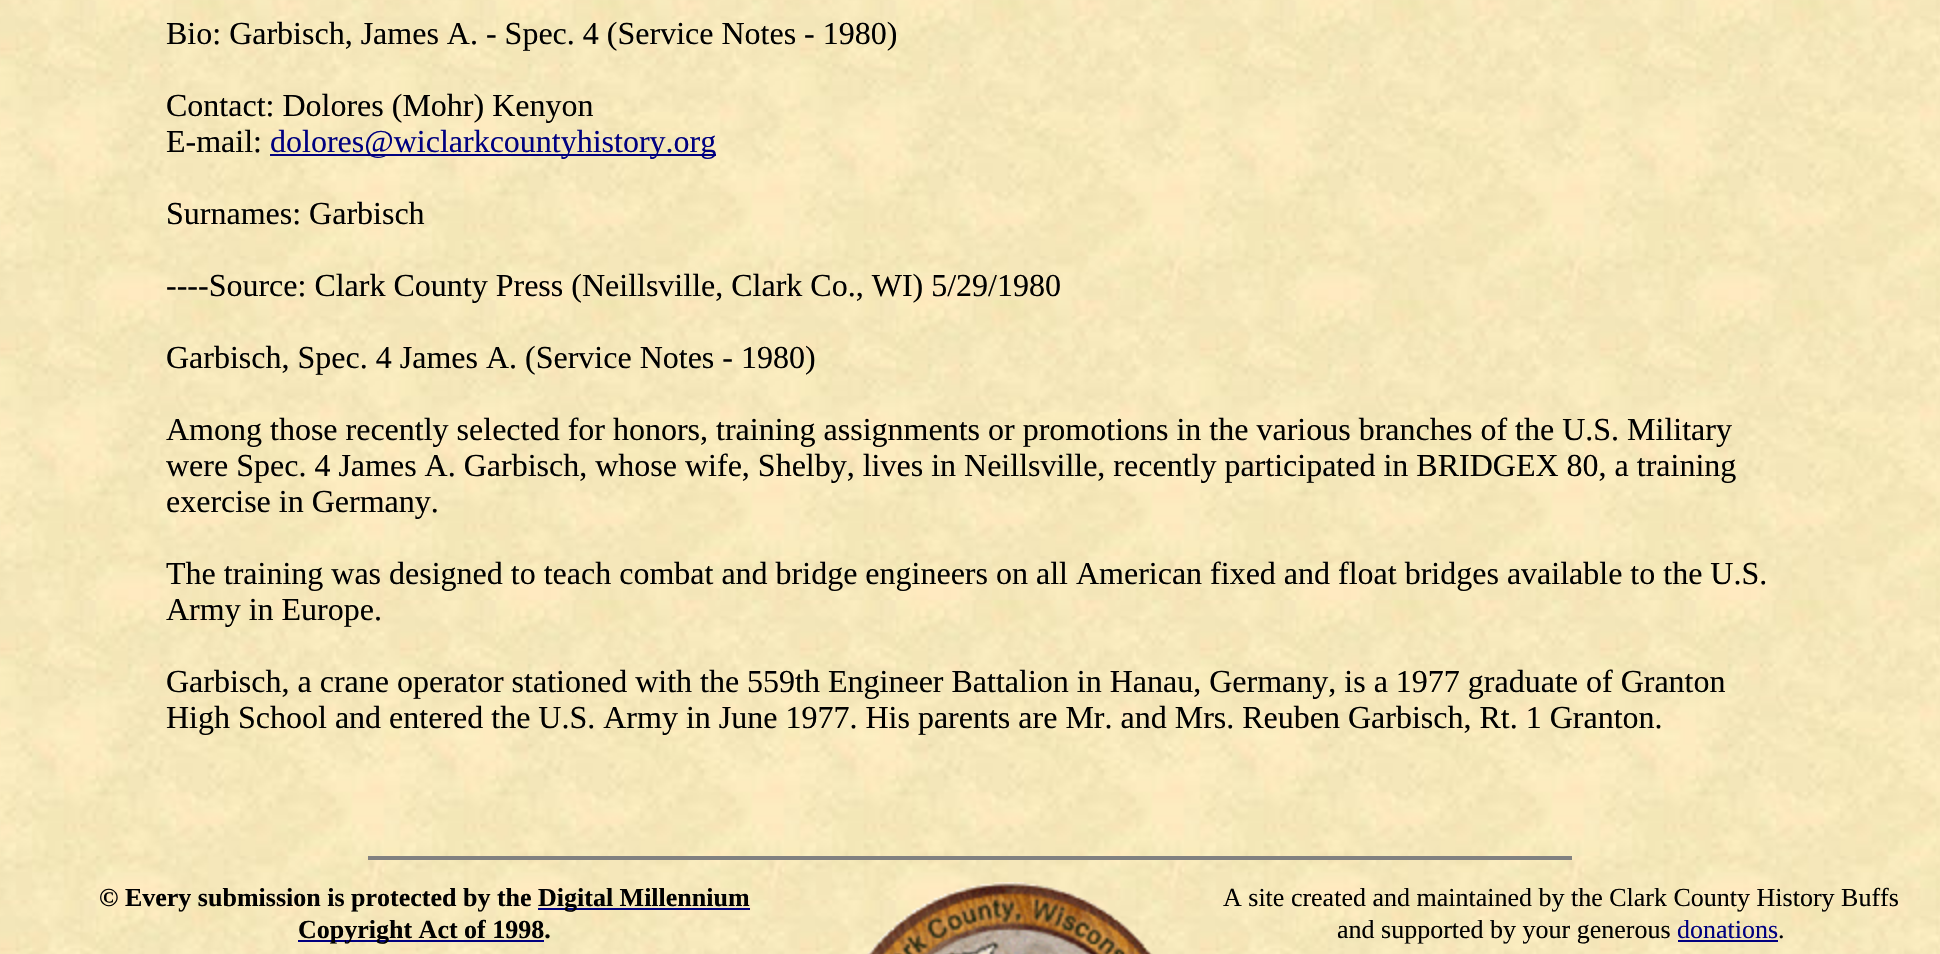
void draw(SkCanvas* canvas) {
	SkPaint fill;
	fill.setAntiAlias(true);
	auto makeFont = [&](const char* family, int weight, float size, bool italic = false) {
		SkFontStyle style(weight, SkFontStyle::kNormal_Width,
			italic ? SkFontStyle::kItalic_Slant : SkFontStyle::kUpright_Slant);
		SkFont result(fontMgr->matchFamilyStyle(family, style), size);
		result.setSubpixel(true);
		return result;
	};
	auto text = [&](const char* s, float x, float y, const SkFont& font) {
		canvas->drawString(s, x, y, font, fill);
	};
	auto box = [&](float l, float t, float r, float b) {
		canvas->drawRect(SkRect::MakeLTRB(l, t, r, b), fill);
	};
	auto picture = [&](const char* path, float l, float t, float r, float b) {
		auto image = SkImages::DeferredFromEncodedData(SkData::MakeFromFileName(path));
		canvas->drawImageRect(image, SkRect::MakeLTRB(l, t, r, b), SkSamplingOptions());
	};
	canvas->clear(0xFFFFFFFF);
	picture("image0.png", 0, 0, 1940, 954);
	fill.setColor(0xFF000080);
	box(270, 154, 716, 156);
	fill.setColor(0xFF808080);
	box(368, 856, 1572, 860);
	fill.setColor(0xFF000080);
	box(538, 908, 750, 910);
	box(298, 940, 544, 942);
	picture("image1.png", 867, 882, 1153, 954);
	box(1678, 940, 1778, 942);
	auto font1 = makeFont("Liberation Serif", 400, 32);
	fill.setColor(0xFF000000);
	text("Bio: Garbisch, James A. - Spec. 4 (Service Notes - 1980)", 166, 44, font1);
	text("Contact: Dolores (Mohr) Kenyon", 166, 116, font1);
	text("E-mail:", 166, 152, font1);
	fill.setColor(0xFF000080);
	text("dolores@wiclarkcountyhistory.org", 270, 152, font1);
	fill.setColor(0xFF000000);
	text("Surnames: Garbisch", 166, 224, font1);
	text("----Source: Clark County Press (Neillsville, Clark Co., WI) 5/29/1980", 166, 296, font1);
	text("Garbisch, Spec. 4 James A. (Service Notes - 1980)", 166, 368, font1);
	text("Among those recently selected for honors, training assignments or promotions in the various branches of the U.S. Military", 166, 440, font1);
	text("were Spec. 4 James A. Garbisch, whose wife, Shelby, lives in Neillsville, recently participated in BRIDGEX 80, a training", 166, 476, font1);
	text("exercise in Germany.", 166, 512, font1);
	text("The training was designed to teach combat and bridge engineers on all American fixed and float bridges available to the U.S.", 166, 584, font1);
	text("Army in Europe.", 166, 620, font1);
	text("Garbisch, a crane operator stationed with the 559th Engineer Battalion in Hanau, Germany, is a 1977 graduate of Granton", 166, 692, font1);
	text("High School and entered the U.S. Army in June 1977. His parents are Mr. and Mrs. Reuben Garbisch, Rt. 1 Granton.", 166, 728, font1);
	auto font2 = makeFont("Liberation Serif", 700, 26);
	text("© Every submission is protected by the", 99, 906, font2);
	text("Digital Millennium", 538, 906, font2);
	text("Copyright Act of 1998.", 298, 938, font2);
	auto font3 = makeFont("Liberation Serif", 400, 26);
	text("A site created and maintained by the Clark County History Buffs", 1223, 906, font3);
	text("and supported by your generous", 1337, 938, font3);
	fill.setColor(0xFF000080);
	text("donations", 1677, 938, font3);
	fill.setColor(0xFF000000);
	text(".", 1778, 938, font3);
}
